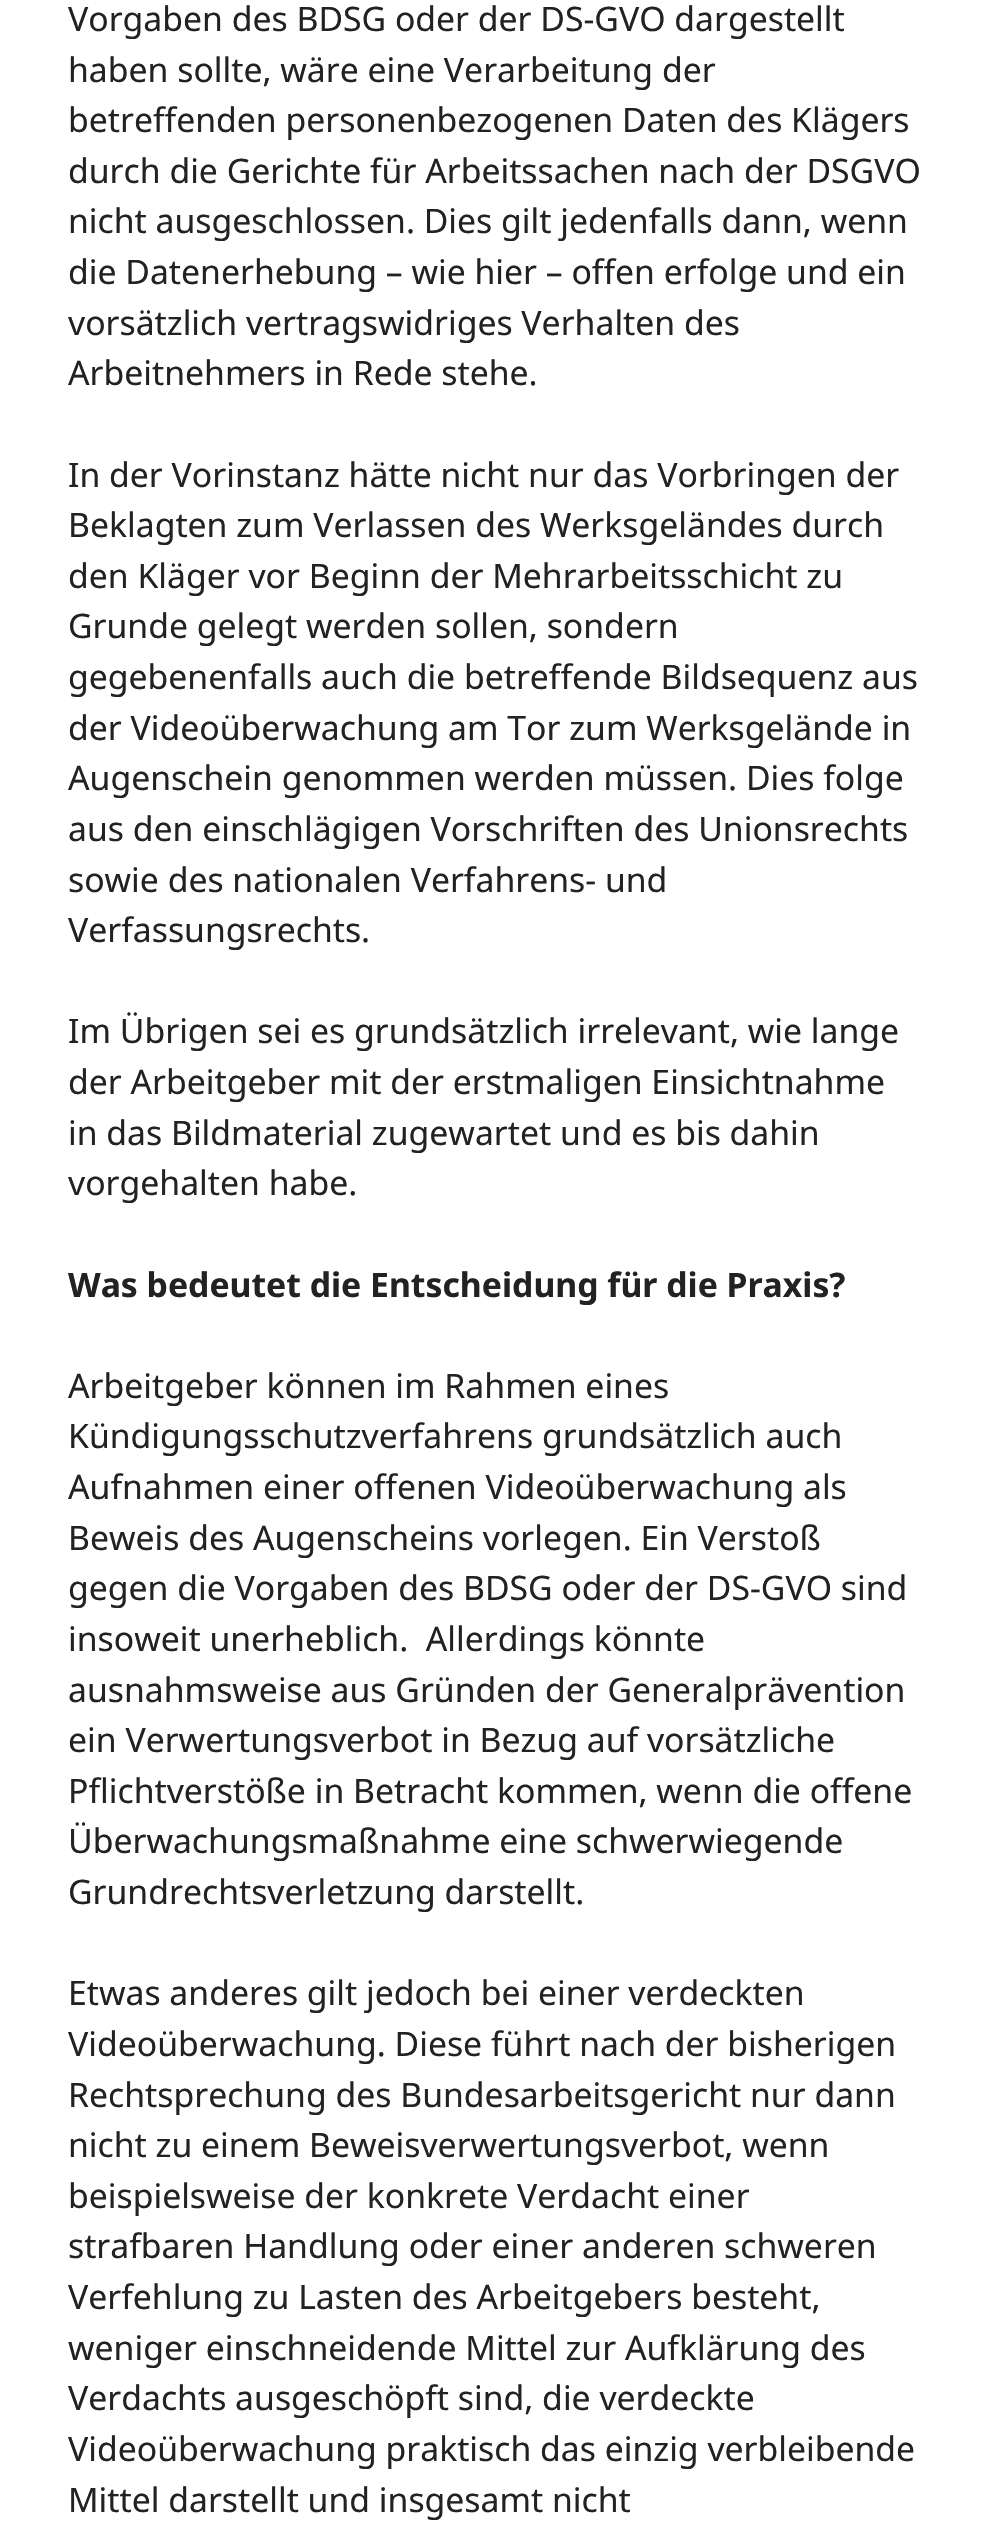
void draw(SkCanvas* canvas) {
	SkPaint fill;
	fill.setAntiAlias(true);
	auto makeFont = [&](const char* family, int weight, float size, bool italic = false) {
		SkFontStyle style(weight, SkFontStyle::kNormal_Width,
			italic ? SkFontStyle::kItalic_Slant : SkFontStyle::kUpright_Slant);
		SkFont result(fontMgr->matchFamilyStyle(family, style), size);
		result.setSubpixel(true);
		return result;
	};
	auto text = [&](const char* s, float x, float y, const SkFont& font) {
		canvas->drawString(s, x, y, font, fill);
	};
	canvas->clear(0xFFFFFFFF);
	auto font1 = makeFont("Noto Sans", 400, 33.75f);
	fill.setColor(0xFF222222);
	text("Vorgaben des BDSG oder der DS-GVO dargestellt", 68, 31, font1);
	text("haben sollte, wäre eine Verarbeitung der", 68, 82, font1);
	text("betreffenden personenbezogenen Daten des Klägers", 68, 132, font1);
	text("durch die Gerichte für Arbeitssachen nach der DSGVO", 68, 183, font1);
	text("nicht ausgeschlossen. Dies gilt jedenfalls dann, wenn", 68, 233, font1);
	text("die Datenerhebung – wie hier – offen erfolge und ein", 68, 284, font1);
	text("vorsätzlich vertragswidriges Verhalten des", 68, 335, font1);
	text("Arbeitnehmers in Rede stehe.", 68, 385, font1);
	text("In der Vorinstanz hätte nicht nur das Vorbringen der", 68, 487, font1);
	text("Beklagten zum Verlassen des Werksgeländes durch", 68, 537, font1);
	text("den Kläger vor Beginn der Mehrarbeitsschicht zu", 68, 588, font1);
	text("Grunde gelegt werden sollen, sondern", 68, 638, font1);
	text("gegebenenfalls auch die betreffende Bildsequenz aus", 68, 689, font1);
	text("der Videoüberwachung am Tor zum Werksgelände in", 68, 740, font1);
	text("Augenschein genommen werden müssen. Dies folge", 68, 790, font1);
	text("aus den einschlägigen Vorschriften des Unionsrechts", 68, 841, font1);
	text("sowie des nationalen Verfahrens- und", 68, 892, font1);
	text("Verfassungsrechts.", 68, 942, font1);
	text("Im Übrigen sei es grundsätzlich irrelevant, wie lange", 68, 1043, font1);
	text("der Arbeitgeber mit der erstmaligen Einsichtnahme", 68, 1094, font1);
	text("in das Bildmaterial zugewartet und es bis dahin", 68, 1145, font1);
	text("vorgehalten habe.", 68, 1195, font1);
	auto font2 = makeFont("Noto Sans", 700, 33.75f);
	text("Was bedeutet die Entscheidung für die Praxis?", 68, 1297, font2);
	text("Arbeitgeber können im Rahmen eines", 68, 1398, font1);
	text("Kündigungsschutzverfahrens grundsätzlich auch", 68, 1448, font1);
	text("Aufnahmen einer offenen Videoüberwachung als", 68, 1499, font1);
	text("Beweis des Augenscheins vorlegen. Ein Verstoß", 68, 1550, font1);
	text("gegen die Vorgaben des BDSG oder der DS-GVO sind", 68, 1600, font1);
	text("insoweit unerheblich.  Allerdings könnte", 68, 1651, font1);
	text("ausnahmsweise aus Gründen der Generalprävention", 68, 1702, font1);
	text("ein Verwertungsverbot in Bezug auf vorsätzliche", 68, 1752, font1);
	text("Pflichtverstöße in Betracht kommen, wenn die offene", 68, 1803, font1);
	text("Überwachungsmaßnahme eine schwerwiegende", 68, 1853, font1);
	text("Grundrechtsverletzung darstellt.", 68, 1904, font1);
	text("Etwas anderes gilt jedoch bei einer verdeckten", 68, 2005, font1);
	text("Videoüberwachung. Diese führt nach der bisherigen", 68, 2056, font1);
	text("Rechtsprechung des Bundesarbeitsgericht nur dann", 68, 2107, font1);
	text("nicht zu einem Beweisverwertungsverbot, wenn", 68, 2157, font1);
	text("beispielsweise der konkrete Verdacht einer", 68, 2208, font1);
	text("strafbaren Handlung oder einer anderen schweren", 68, 2258, font1);
	text("Verfehlung zu Lasten des Arbeitgebers besteht,", 68, 2309, font1);
	text("weniger einschneidende Mittel zur Aufklärung des", 68, 2360, font1);
	text("Verdachts ausgeschöpft sind, die verdeckte", 68, 2410, font1);
	text("Videoüberwachung praktisch das einzig verbleibende", 68, 2461, font1);
	text("Mittel darstellt und insgesamt nicht", 68, 2512, font1);
}
